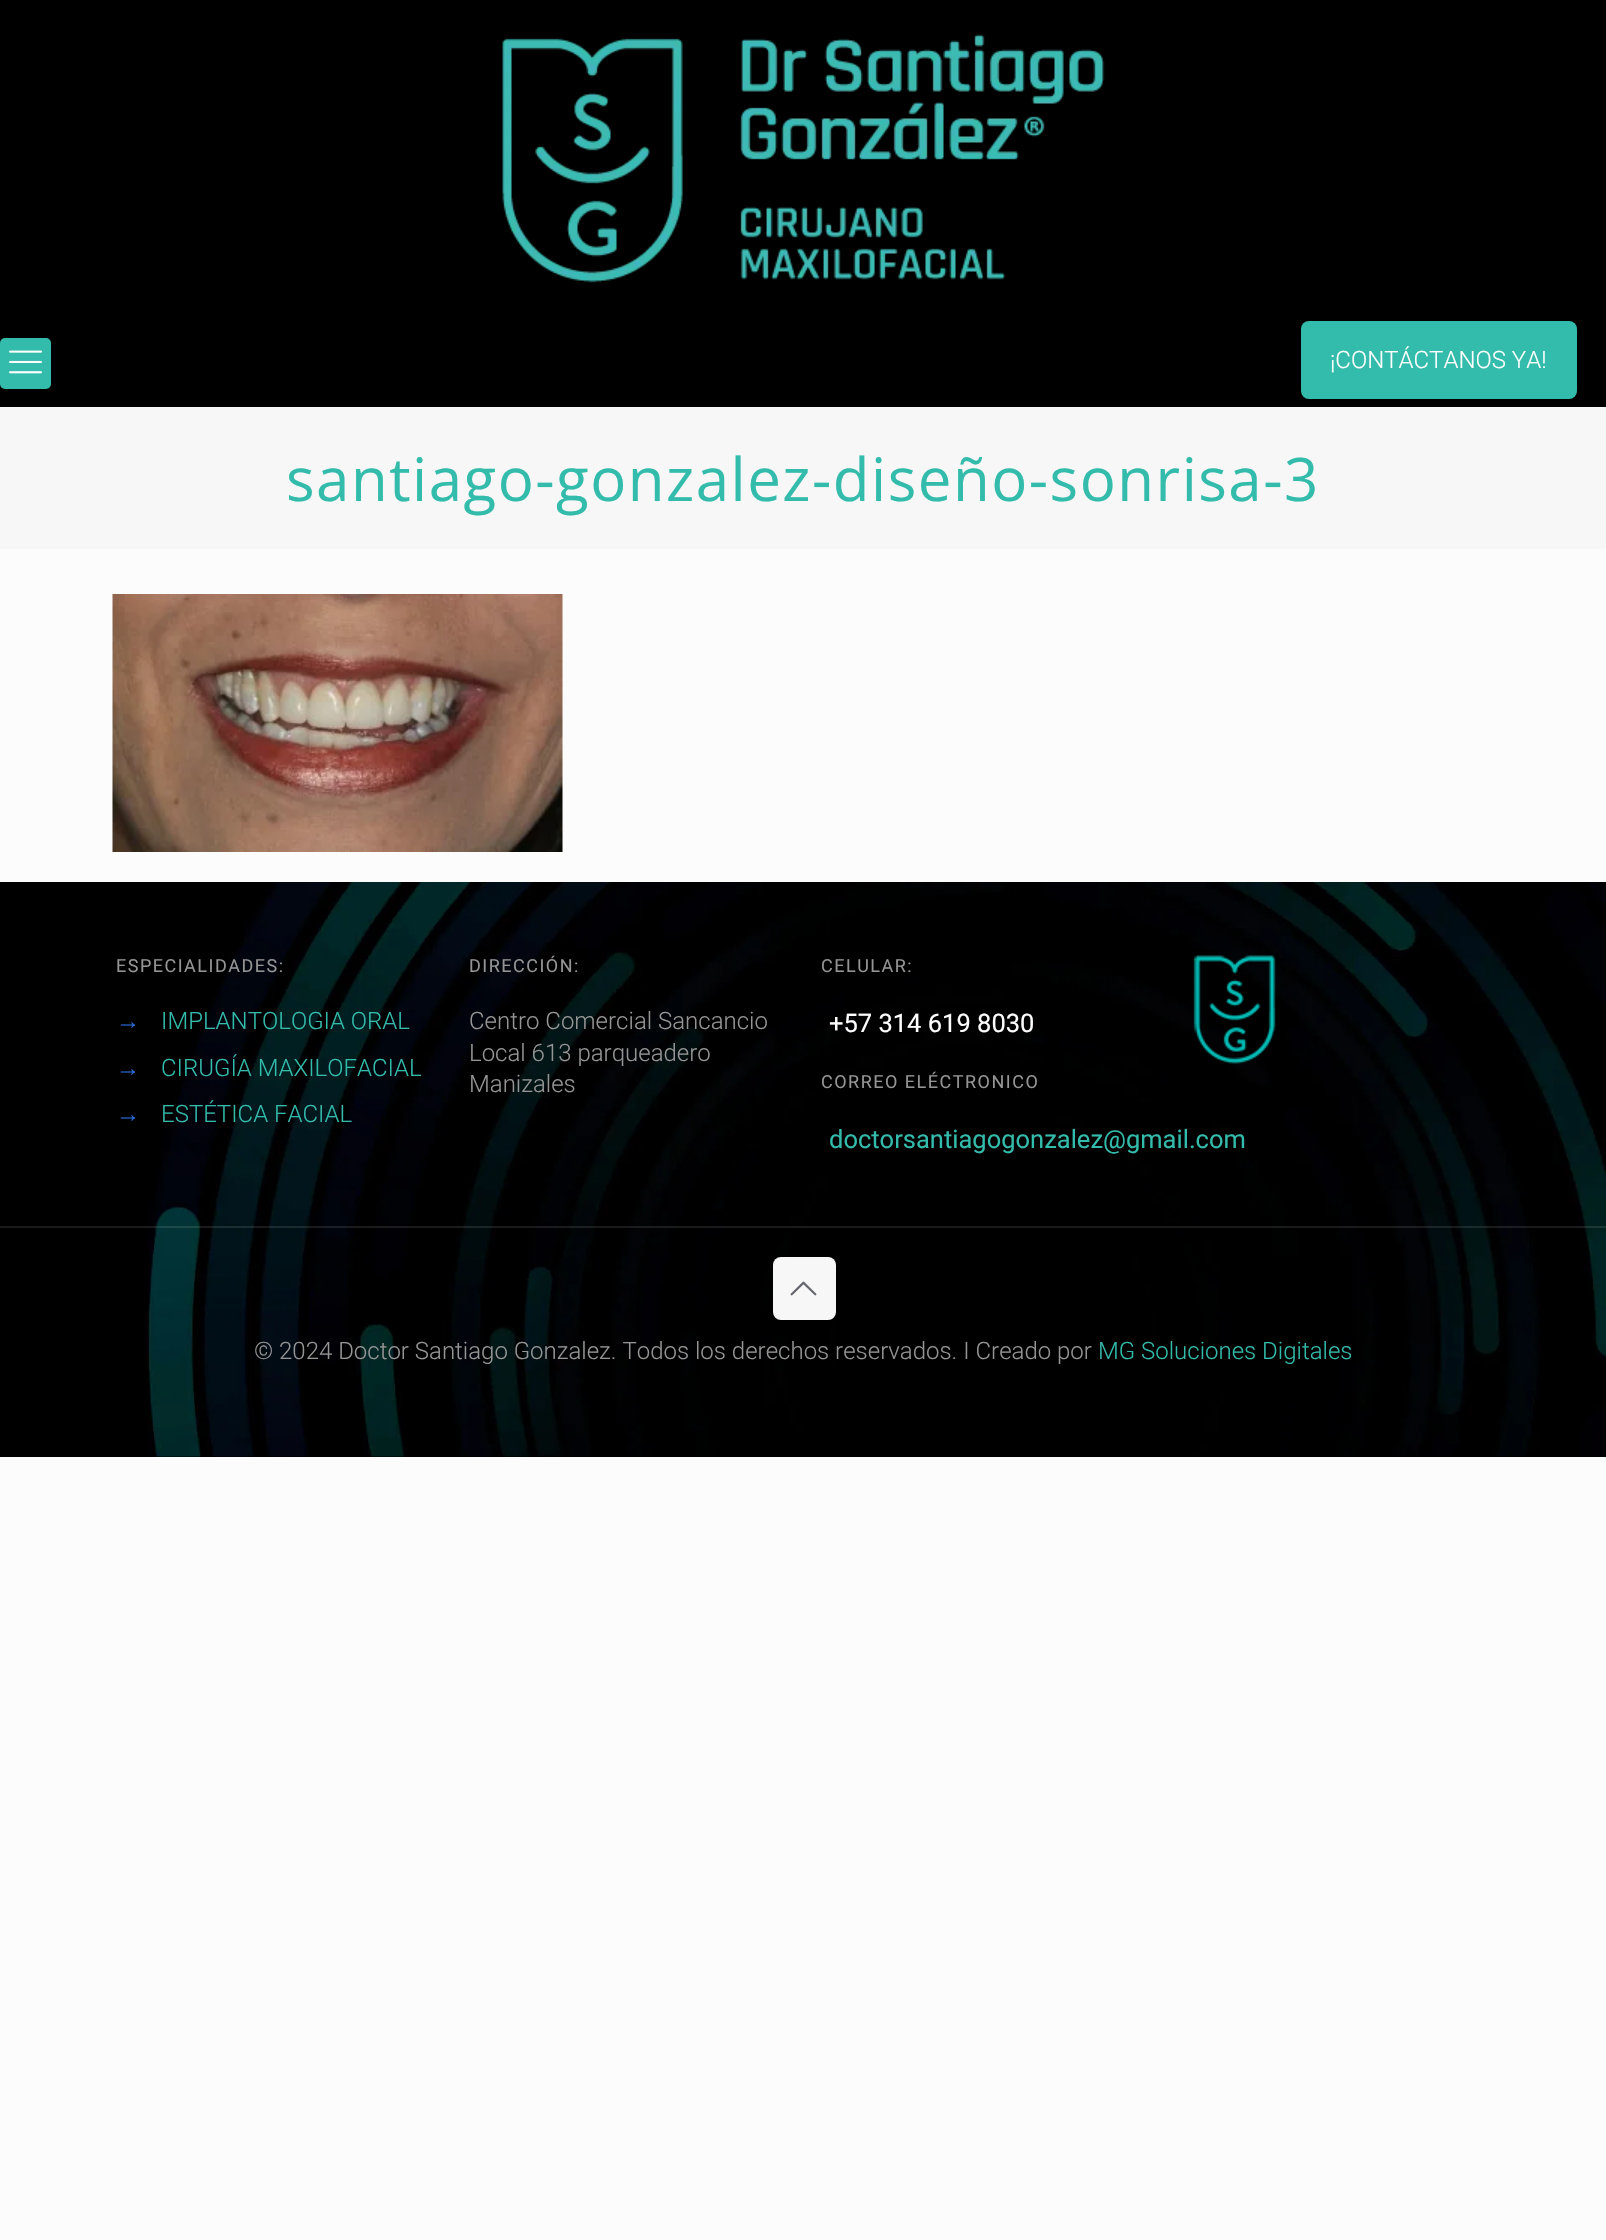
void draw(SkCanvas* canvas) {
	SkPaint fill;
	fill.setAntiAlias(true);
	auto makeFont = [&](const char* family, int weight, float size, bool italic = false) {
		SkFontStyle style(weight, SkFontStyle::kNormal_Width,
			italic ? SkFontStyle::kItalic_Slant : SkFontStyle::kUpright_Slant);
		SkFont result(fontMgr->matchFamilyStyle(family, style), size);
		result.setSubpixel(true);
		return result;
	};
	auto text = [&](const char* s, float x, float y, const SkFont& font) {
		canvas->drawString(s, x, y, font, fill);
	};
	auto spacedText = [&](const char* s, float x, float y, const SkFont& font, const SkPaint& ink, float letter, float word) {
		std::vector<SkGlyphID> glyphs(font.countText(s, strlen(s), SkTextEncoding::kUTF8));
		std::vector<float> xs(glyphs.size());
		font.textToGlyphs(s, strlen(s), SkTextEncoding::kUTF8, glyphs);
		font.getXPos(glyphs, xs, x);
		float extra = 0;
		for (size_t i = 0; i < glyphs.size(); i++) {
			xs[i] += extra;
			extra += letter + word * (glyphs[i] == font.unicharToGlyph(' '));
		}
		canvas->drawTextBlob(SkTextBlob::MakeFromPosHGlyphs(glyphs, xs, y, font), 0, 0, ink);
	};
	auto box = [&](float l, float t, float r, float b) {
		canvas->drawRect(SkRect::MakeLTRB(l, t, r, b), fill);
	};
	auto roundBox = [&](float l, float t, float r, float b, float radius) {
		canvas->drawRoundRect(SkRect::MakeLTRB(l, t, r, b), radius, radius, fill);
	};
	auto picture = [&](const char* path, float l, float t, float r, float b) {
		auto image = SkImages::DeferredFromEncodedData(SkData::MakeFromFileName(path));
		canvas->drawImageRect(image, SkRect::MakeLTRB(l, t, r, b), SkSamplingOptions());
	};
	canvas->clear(0xFFFCFCFC);
	fill.setColor(0xFF000000);
	box(0, 0, 1606, 407);
	picture("image0.png", 502, 34, 1105, 283);
	fill.setColor(0xFF33BBAB);
	roundBox(0, 338, 51, 389, 5);
	picture("image1.png", 9, 350, 42, 374);
	roundBox(1301, 321, 1577, 399, 8);
	fill.setColor(0xFFF7F7F7);
	box(0, 407, 1606, 549);
	picture("image2.png", 112, 594, 563, 852);
	fill.setColor(0xFF000000);
	box(0, 882, 1606, 1457);
	picture("image3.png", 146, 882, 1606, 1457);
	picture("image4.png", 1193, 955, 1276, 1064);
	fill.setColor(0x1AFFFFFF);
	box(0, 1226, 1606, 1228);
	fill.setColor(0xFFF7F7F7);
	roundBox(773, 1257, 836, 1320, 8);
	picture("image5.png", 790, 1281, 817, 1296);
	auto font1 = makeFont("Roboto", 300, 24);
	fill.setColor(0xFFFFFFFF);
	text("¡CONTÁCTANOS YA!", 1330, 368, font1);
	auto font2 = makeFont("Open Sans", 400, 60);
	fill.setColor(0xFF33BBAB);
	spacedText("santiago-gonzalez-diseño-sonrisa-3", 286, 501, font2, fill, 1.5f, 0);
	auto font3 = makeFont("Roboto", 400, 18);
	fill.setColor(0xFF959595);
	spacedText("ESPECIALIDADES:", 116, 972, font3, fill, 1.5f, 0);
	auto font4 = makeFont("Liberation Sans", 400, 24);
	fill.setColor(0xFF296BD9);
	text("→", 116, 1029, font4);
	fill.setColor(0xFF33BBAB);
	text("IMPLANTOLOGIA ORAL", 161, 1029, font1);
	fill.setColor(0xFF296BD9);
	text("→", 116, 1076, font4);
	fill.setColor(0xFF33BBAB);
	text("CIRUGÍA MAXILOFACIAL", 161, 1076, font1);
	fill.setColor(0xFF296BD9);
	text("→", 116, 1122, font4);
	fill.setColor(0xFF33BBAB);
	text("ESTÉTICA FACIAL", 161, 1122, font1);
	fill.setColor(0xFF959595);
	spacedText("DIRECCIÓN:", 469, 972, font3, fill, 1.5f, 0);
	text("Centro Comercial Sancancio", 469, 1029, font1);
	text("Local 613 parqueadero", 469, 1061, font1);
	text("Manizales", 469, 1092, font1);
	spacedText("CELULAR:", 821, 972, font3, fill, 1.5f, 0);
	auto font5 = makeFont("Roboto", 400, 25.5f);
	fill.setColor(0xFFFFFFFF);
	text("+57 314 619 8030", 829, 1032, font5);
	fill.setColor(0xFF959595);
	spacedText("CORREO ELÉCTRONICO", 821, 1088, font3, fill, 1.5f, 0);
	fill.setColor(0xFF33BBAB);
	text("doctorsantiagogonzalez@gmail.com", 829, 1148, font5);
	fill.setColor(0xFF959595);
	text("© 2024 Doctor Santiago Gonzalez. Todos los derechos reservados. I Creado por", 254, 1359, font1);
	fill.setColor(0xFF33BBAB);
	text("MG Soluciones Digitales", 1098, 1359, font1);
}
